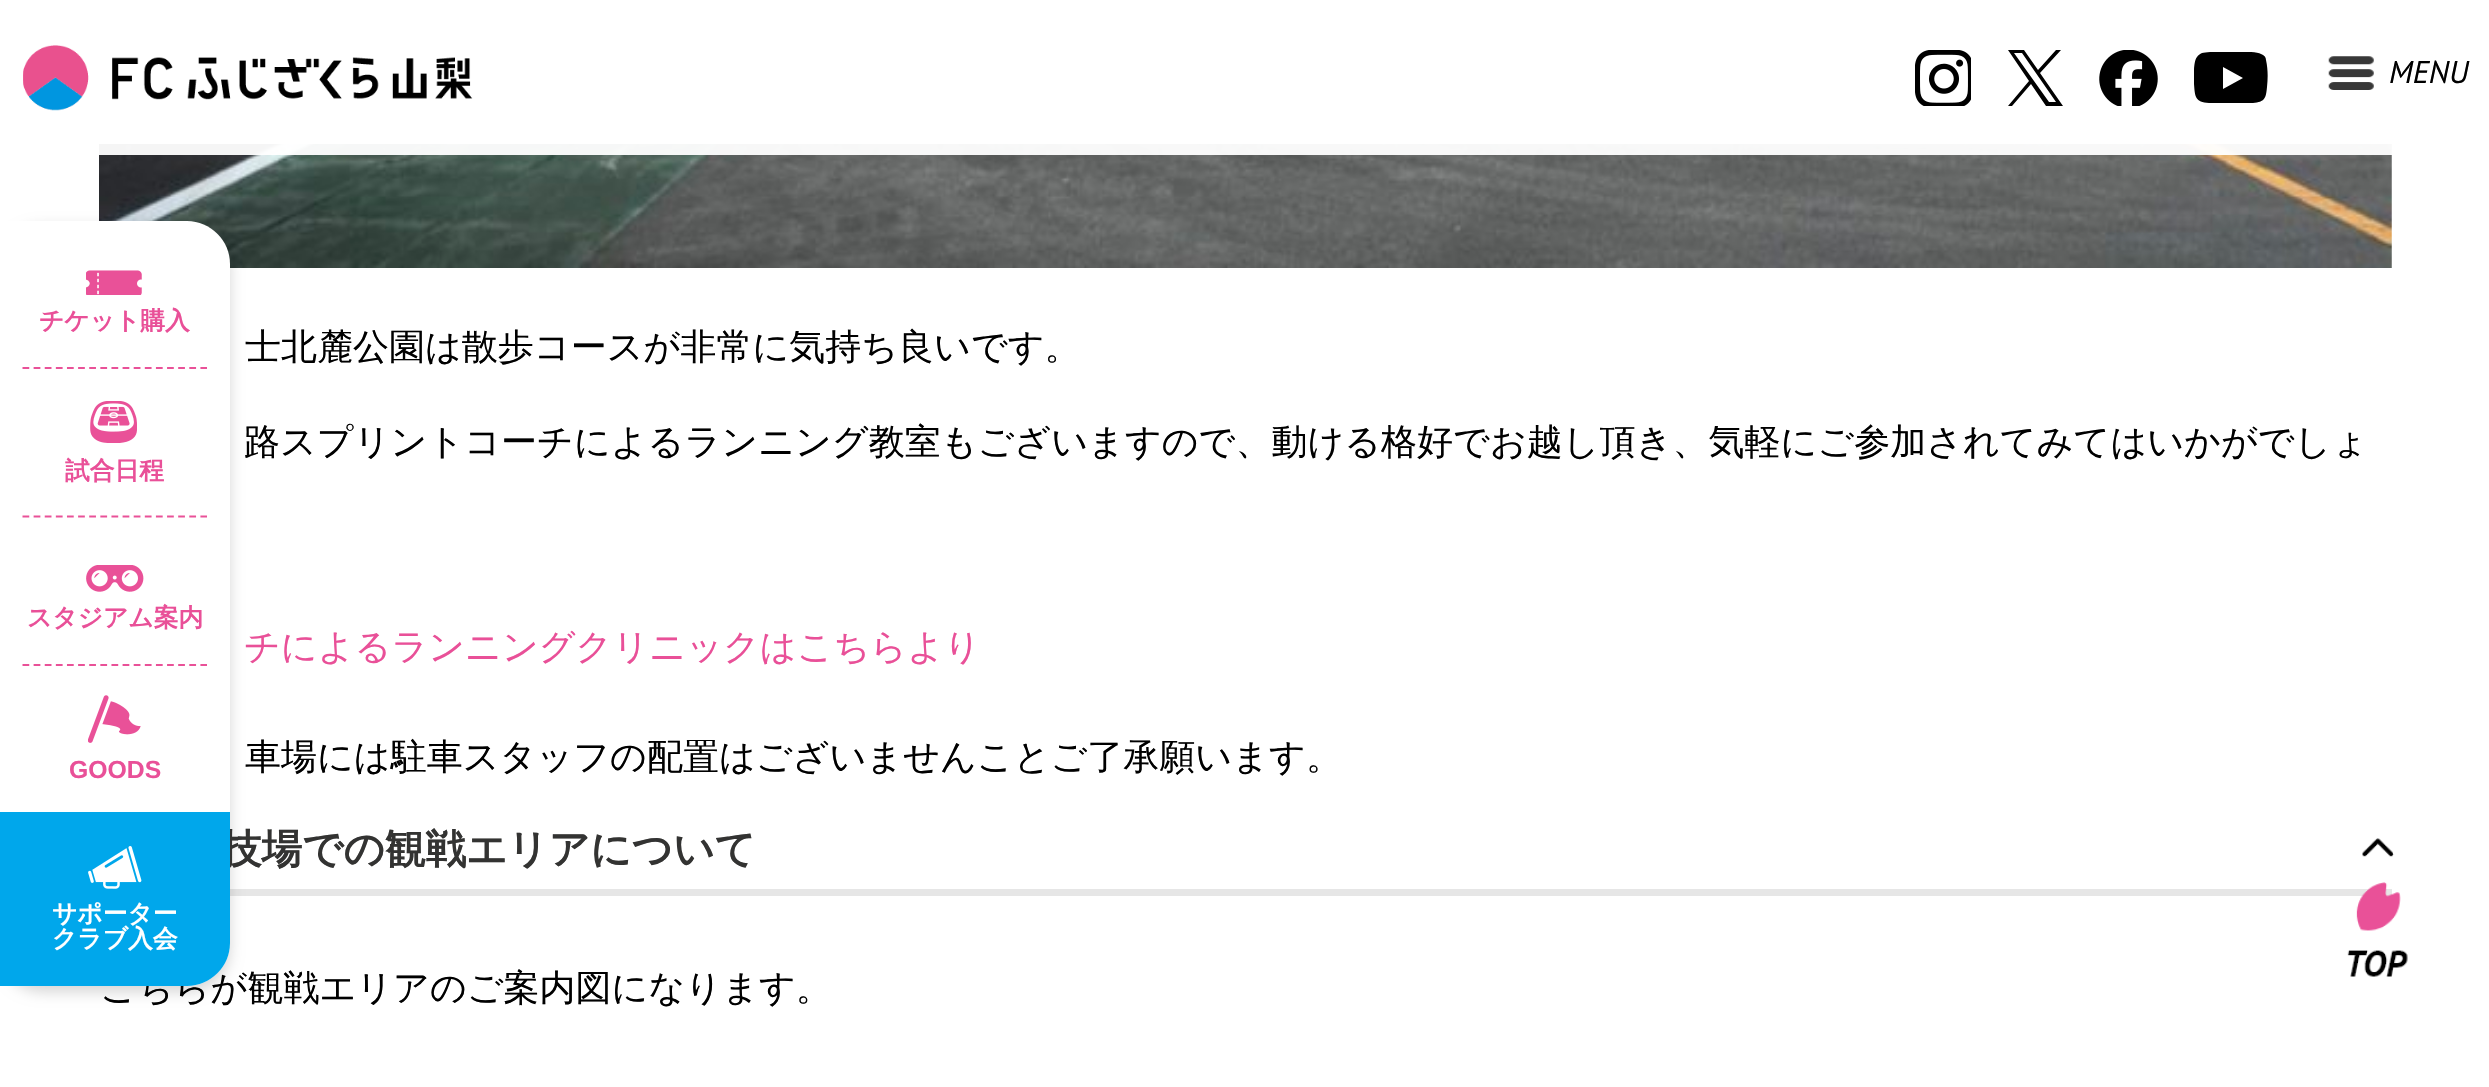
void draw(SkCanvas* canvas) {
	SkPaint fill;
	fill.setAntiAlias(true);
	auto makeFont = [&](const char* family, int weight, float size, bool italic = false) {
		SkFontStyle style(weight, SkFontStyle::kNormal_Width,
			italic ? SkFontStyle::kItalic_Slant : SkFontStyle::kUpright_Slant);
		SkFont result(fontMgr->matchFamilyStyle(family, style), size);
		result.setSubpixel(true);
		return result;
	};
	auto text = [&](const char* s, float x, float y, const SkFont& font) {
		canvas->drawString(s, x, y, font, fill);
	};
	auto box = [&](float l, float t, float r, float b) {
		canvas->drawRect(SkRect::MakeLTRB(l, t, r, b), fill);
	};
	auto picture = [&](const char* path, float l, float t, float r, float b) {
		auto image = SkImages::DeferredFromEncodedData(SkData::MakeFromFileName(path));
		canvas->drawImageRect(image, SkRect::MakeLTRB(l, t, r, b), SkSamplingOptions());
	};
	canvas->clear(0xFFFFFFFF);
	picture("image4.png", 99, 144, 2392, 268);
	fill.setColor(0xF2FFFFFF);
	box(99, 144, 2392, 155);
	picture("image0.png", 23, 45, 473, 111);
	picture("image1.png", 1915, 50, 1971, 106);
	fill.setColor(0xFF000000);
	canvas->drawPath(SkPathBuilder().moveTo(2040, 73).lineTo(2061, 50).lineTo(2056, 50).lineTo(2038, 70).lineTo(2024, 50).lineTo(2008, 50).lineTo(2029, 81).lineTo(2008, 106).lineTo(2012, 106).lineTo(2031, 84).lineTo(2046, 106).lineTo(2063, 106).close().moveTo(2034, 81).lineTo(2014, 53).lineTo(2022, 53).lineTo(2056, 102).lineTo(2049, 102).close().detach(), fill);
	picture("image2.png", 2099, 50, 2158, 106);
	canvas->save();
	canvas->clipRect(SkRect::MakeLTRB(2194, 52, 2268, 104));
	canvas->drawPath(SkPathBuilder().moveTo(2266, 60).cubicTo(2266, 57, 2264, 55, 2261, 54).cubicTo(2253, 50, 2211, 51, 2202, 53).cubicTo(2200, 54, 2198, 55, 2197, 57).cubicTo(2193, 62, 2194, 78, 2194, 84).cubicTo(2195, 97, 2195, 102, 2209, 103).lineTo(2235, 103).lineTo(2253, 103).cubicTo(2265, 102, 2266, 98, 2267, 87).cubicTo(2268, 78, 2268, 69, 2266, 60).close().moveTo(2223, 89).lineTo(2223, 67).lineTo(2243, 78).close().detach(), fill);
	canvas->restore();
	picture("image3.png", 2328, 56, 2374, 90);
	fill.setColor(0xFFE6E6E6);
	box(230, 889, 2392, 896);
	fill.setColor(0x29000000);
	fill.setMaskFilter(SkMaskFilter::MakeBlur(kNormal_SkBlurStyle, 7));
	canvas->drawRoundRect(SkRect::MakeLTRB(0, 227, 230, 992), 43, 43, fill);
	fill.setMaskFilter(nullptr);
	picture("image10.png", 2347, 838, 2408, 977);
	auto font1 = makeFont("PT Sans", 400, 31.5f, true);
	fill.setColor(0xFF000000);
	text("MENU", 2389, 83, font1);
	auto font2 = makeFont("WenQuanYi Zen Hei", 500, 36);
	text("士北麓公園は散歩コースが非常に気持ち良いです。", 245, 359, font2);
	text("路スプリントコーチによるランニング教室もございますので、動ける格好でお越し頂き、気軽にご参加されてみてはいかがでしょ", 244, 454, font2);
	fill.setColor(0xFFE95098);
	text("チによるランニングクリニックはこちらより", 244, 659, font2);
	fill.setColor(0xFF000000);
	text("車場には駐車スタッフの配置はございませんことご了承願います。", 245, 769, font2);
	auto font3 = makeFont("WenQuanYi Zen Hei", 700, 40.5f);
	fill.setColor(0xFF333332);
	text("技場での観戦エリアについて", 221, 863, font3);
	fill.setColor(0xFF000000);
	text("こちらが観戦エリアのご案内図になります。", 100, 1000, font2);
	fill.setColor(0xFFFFFFFF);
	canvas->drawPath(SkPathBuilder().moveTo(0, 221).lineTo(187, 221).cubicTo(210.5f, 221, 230, 240.5f, 230, 264).lineTo(230, 943).cubicTo(230, 966.5f, 210.5f, 986, 187, 986).lineTo(0, 986).close().detach(), fill);
	fill.setStyle(SkPaint::kStroke_Style);
	fill.setStrokeWidth(2.2f);
	fill.setColor(0xFFE95198);
	fill.setPathEffect(SkDashPathEffect::Make({{6.75f, 4.37f}}, 0));
	canvas->drawPath(SkPathBuilder().moveTo(22.5f, 368).lineTo(207, 368).detach(), fill);
	fill.setPathEffect(nullptr);
	picture("image5.png", 86, 270, 142, 295);
	auto font4 = makeFont("WenQuanYi Zen Hei", 700, 24.75f);
	fill.setStyle(SkPaint::kFill_Style);
	fill.setColor(0xFFE95098);
	text("チケット購入", 39, 329, font4);
	fill.setStyle(SkPaint::kStroke_Style);
	fill.setColor(0xFFE95198);
	fill.setPathEffect(SkDashPathEffect::Make({{6.75f, 4.37f}}, 0));
	canvas->drawPath(SkPathBuilder().moveTo(22.5f, 516.5f).lineTo(207, 516.5f).detach(), fill);
	fill.setPathEffect(nullptr);
	picture("image6.png", 90, 401, 137, 443);
	fill.setStyle(SkPaint::kFill_Style);
	fill.setColor(0xFFE95098);
	text("試合日程", 65, 479, font4);
	fill.setStyle(SkPaint::kStroke_Style);
	fill.setColor(0xFFE95198);
	fill.setPathEffect(SkDashPathEffect::Make({{6.75f, 4.37f}}, 0));
	canvas->drawPath(SkPathBuilder().moveTo(22.5f, 665).lineTo(207, 665).detach(), fill);
	fill.setPathEffect(nullptr);
	picture("image7.png", 86, 565, 144, 592);
	fill.setStyle(SkPaint::kFill_Style);
	fill.setColor(0xFFE95098);
	text("スタジアム案内", 27, 626, font4);
	picture("image8.png", 88, 695, 141, 743);
	auto font5 = makeFont("Liberation Sans", 700, 24.75f);
	text("GOODS", 69, 778, font5);
	fill.setColor(0xFF00A7EB);
	canvas->drawPath(SkPathBuilder().moveTo(0, 812).lineTo(230, 812).lineTo(230, 943).cubicTo(230, 966.5f, 210.5f, 986, 187, 986).lineTo(0, 986).close().detach(), fill);
	picture("image9.png", 88, 846, 142, 889);
	fill.setColor(0xFFFFFFFF);
	text("サポーター", 52, 922, font4);
	text("クラブ入会", 52, 947, font4);
}
